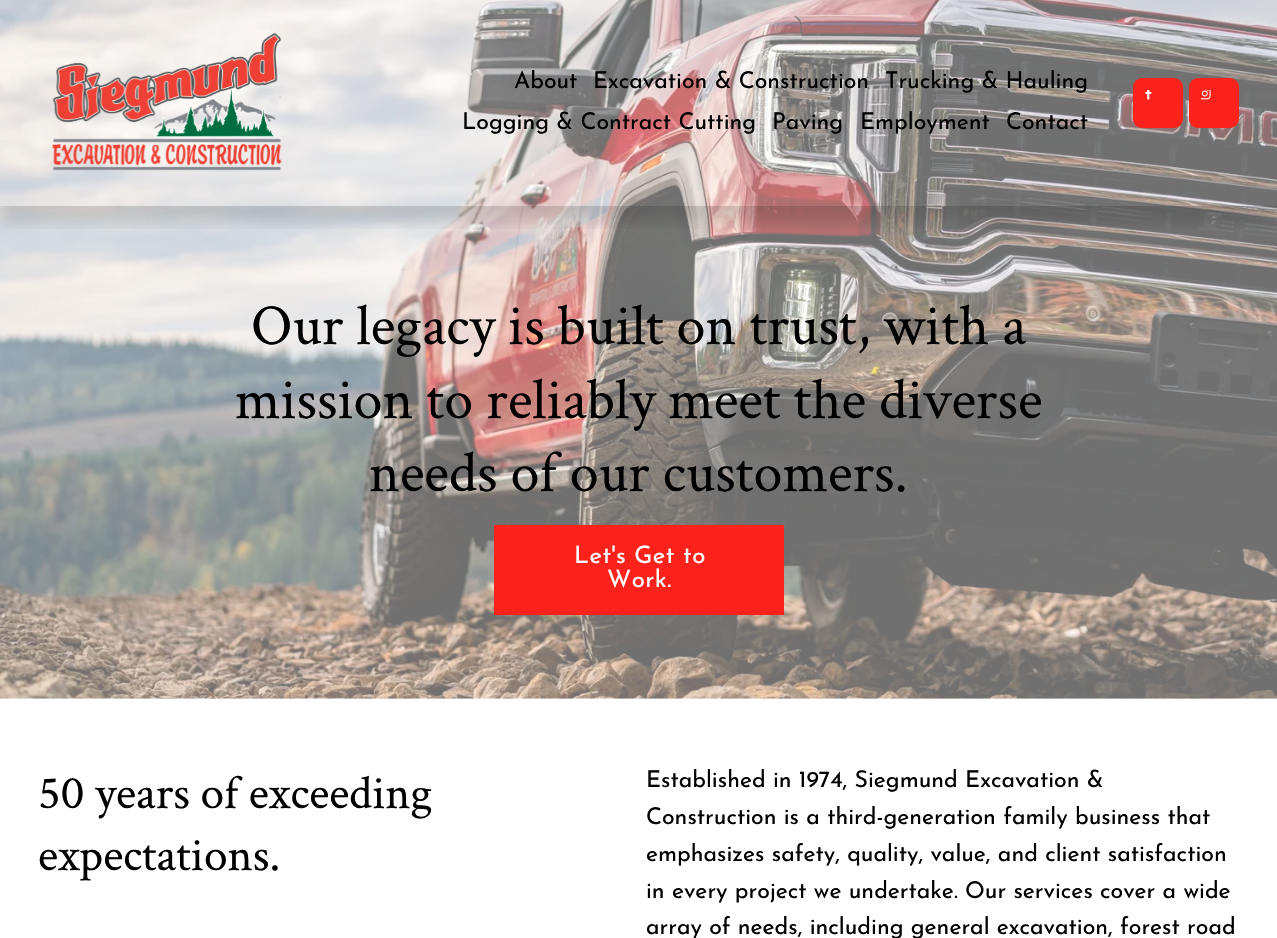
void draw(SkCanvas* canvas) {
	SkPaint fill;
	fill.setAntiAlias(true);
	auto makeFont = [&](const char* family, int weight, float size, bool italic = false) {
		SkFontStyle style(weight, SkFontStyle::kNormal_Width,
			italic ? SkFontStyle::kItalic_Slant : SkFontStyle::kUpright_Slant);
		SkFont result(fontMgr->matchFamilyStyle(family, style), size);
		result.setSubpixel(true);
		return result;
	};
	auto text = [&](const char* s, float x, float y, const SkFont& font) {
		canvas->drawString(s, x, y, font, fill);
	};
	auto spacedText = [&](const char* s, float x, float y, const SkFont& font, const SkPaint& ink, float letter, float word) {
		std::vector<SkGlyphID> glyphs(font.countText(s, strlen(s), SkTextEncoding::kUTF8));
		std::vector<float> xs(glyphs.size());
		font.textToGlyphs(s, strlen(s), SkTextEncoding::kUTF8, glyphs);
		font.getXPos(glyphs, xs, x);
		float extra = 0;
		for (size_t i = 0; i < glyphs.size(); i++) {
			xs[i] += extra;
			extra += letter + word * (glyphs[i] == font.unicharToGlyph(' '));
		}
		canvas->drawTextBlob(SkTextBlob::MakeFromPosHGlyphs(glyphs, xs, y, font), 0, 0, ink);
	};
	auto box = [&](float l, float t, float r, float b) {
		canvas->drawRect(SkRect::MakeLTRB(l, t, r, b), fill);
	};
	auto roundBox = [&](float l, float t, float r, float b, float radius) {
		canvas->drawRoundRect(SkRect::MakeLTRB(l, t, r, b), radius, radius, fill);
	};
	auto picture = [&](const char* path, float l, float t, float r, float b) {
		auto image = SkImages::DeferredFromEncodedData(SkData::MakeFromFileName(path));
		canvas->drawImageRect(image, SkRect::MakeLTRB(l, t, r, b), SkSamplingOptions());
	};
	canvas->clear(0xFFFFFFFF);
	picture("image3.png", 0, 0, 1277, 699);
	canvas->save();
	canvas->clipRect(SkRect::MakeLTRB(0, 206, 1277, 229));
	fill.setColor(0x26000000);
	fill.setMaskFilter(SkMaskFilter::MakeBlur(kNormal_SkBlurStyle, 7.5f));
	canvas->drawRect(SkRect::MakeLTRB(0, 15, 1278, 221), fill);
	fill.setMaskFilter(nullptr);
	canvas->restore();
	picture("image0.png", 52, 33, 282, 171);
	fill.setColor(0xFFFC221C);
	roundBox(1133, 78, 1183, 128, 9);
	picture("image1.png", 1145, 90, 1152, 100);
	roundBox(1189, 78, 1239, 128, 9);
	picture("image2.png", 1201, 90, 1211, 100);
	box(494, 525, 784, 615);
	auto font1 = makeFont("Josefin Sans", 400, 23.1f);
	fill.setColor(0xFF000000);
	text("About", 514, 88, font1);
	text("Excavation & Construction", 593, 88, font1);
	text("Trucking & Hauling", 885, 88, font1);
	text("Logging & Contract Cutting", 462, 129, font1);
	text("Paving", 772, 129, font1);
	text("Employment", 860, 129, font1);
	text("Contact", 1006, 129, font1);
	auto font2 = makeFont("Crimson Text", 400, 58.25f);
	text("Our legacy is built on trust, with a", 251, 344, font2);
	text("mission to reliably meet the diverse", 235, 418, font2);
	text("needs of our customers.", 369, 491, font2);
	auto font3 = makeFont("Josefin Sans", 400, 24);
	fill.setColor(0xFFFFFFFF);
	spacedText("Let's Get to", 574, 563, font3, fill, 0.5f, 0);
	spacedText("Work.", 607, 587, font3, fill, 0.5f, 0);
	auto font4 = makeFont("Crimson Text", 400, 47.5f);
	fill.setColor(0xFF000000);
	text("50 years of exceeding", 38, 808, font4);
	text("expectations.", 38, 870, font4);
	text("Established in 1974, Siegmund Excavation &", 646, 787, font1);
	text("Construction is a third-generation family business that", 646, 824, font1);
	text("emphasizes safety, quality, value, and client satisfaction", 646, 861, font1);
	text("in every project we undertake. Our services cover a wide", 646, 898, font1);
	text("array of needs, including general excavation, forest road", 646, 934, font1);
}
